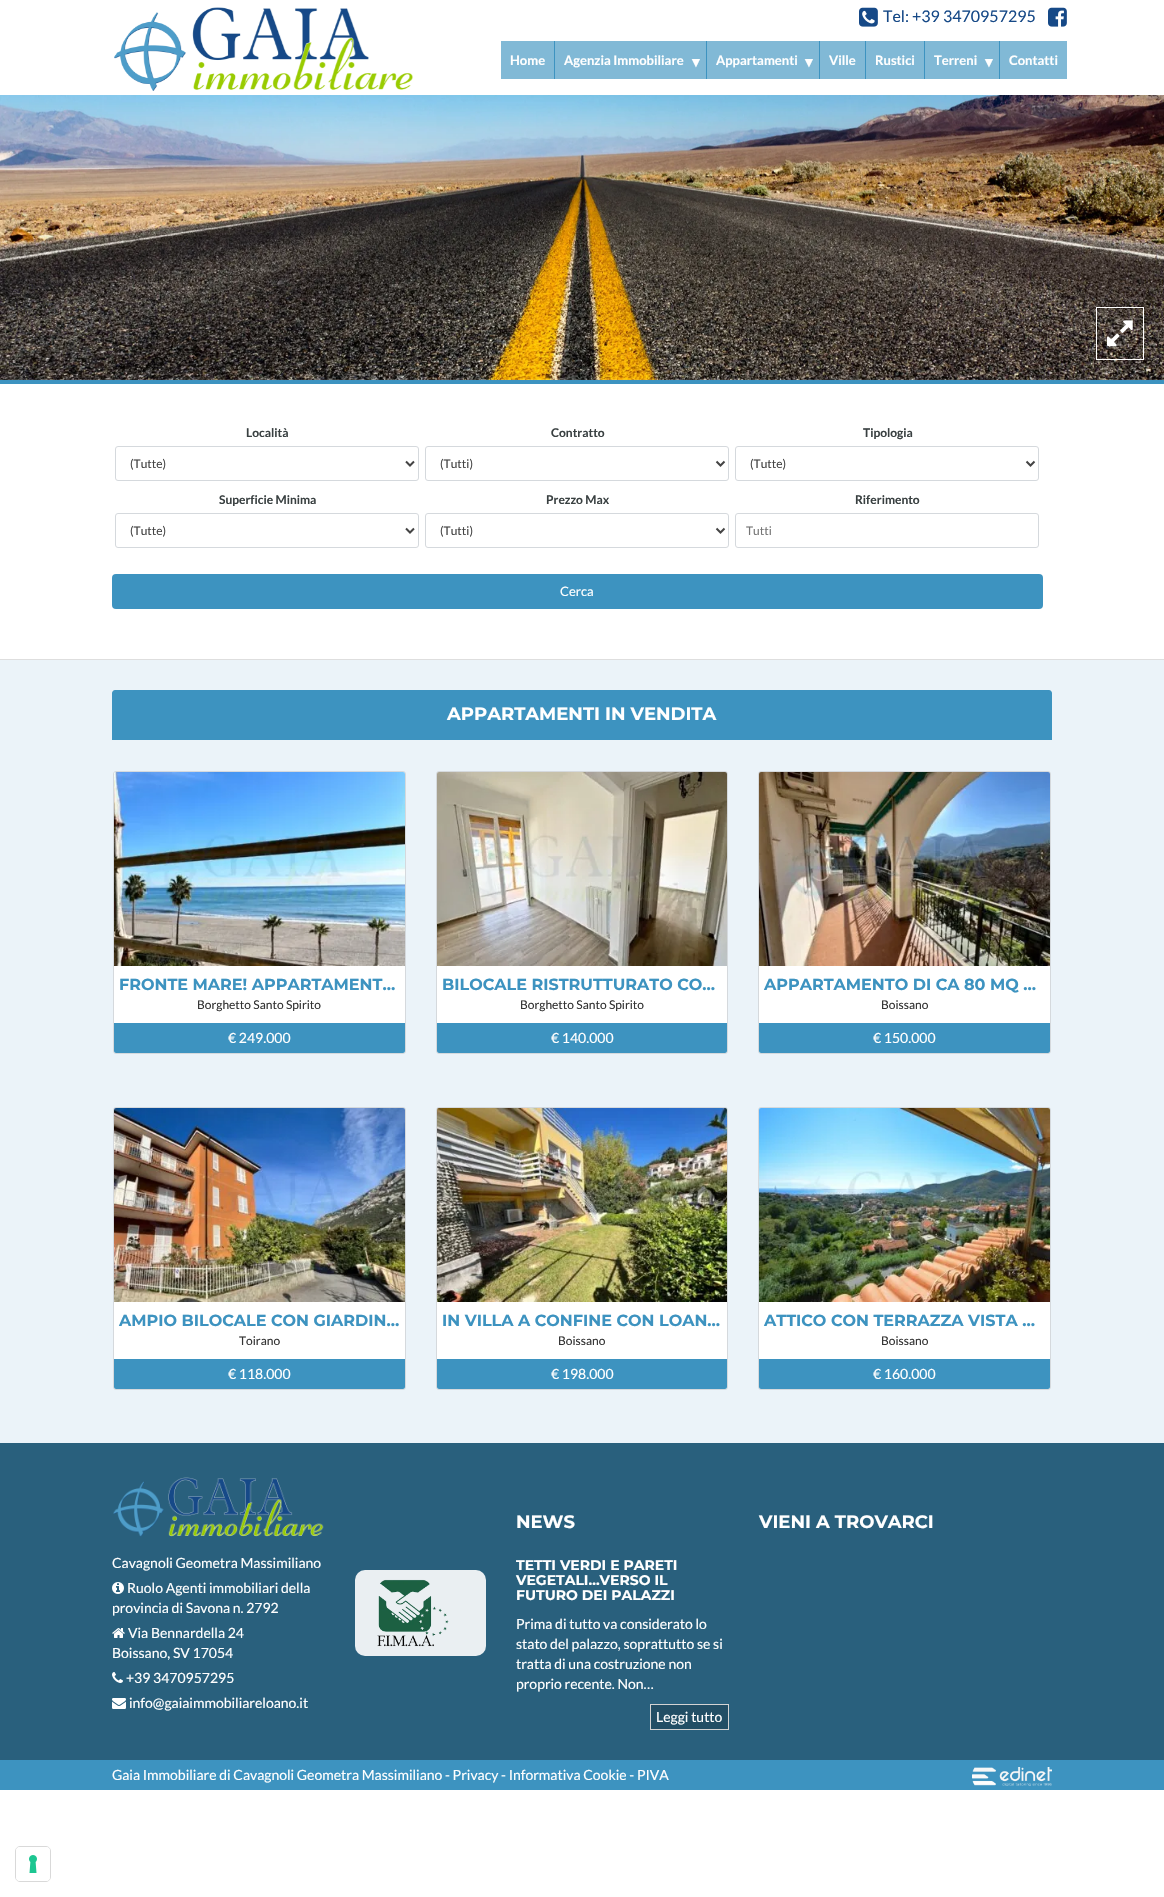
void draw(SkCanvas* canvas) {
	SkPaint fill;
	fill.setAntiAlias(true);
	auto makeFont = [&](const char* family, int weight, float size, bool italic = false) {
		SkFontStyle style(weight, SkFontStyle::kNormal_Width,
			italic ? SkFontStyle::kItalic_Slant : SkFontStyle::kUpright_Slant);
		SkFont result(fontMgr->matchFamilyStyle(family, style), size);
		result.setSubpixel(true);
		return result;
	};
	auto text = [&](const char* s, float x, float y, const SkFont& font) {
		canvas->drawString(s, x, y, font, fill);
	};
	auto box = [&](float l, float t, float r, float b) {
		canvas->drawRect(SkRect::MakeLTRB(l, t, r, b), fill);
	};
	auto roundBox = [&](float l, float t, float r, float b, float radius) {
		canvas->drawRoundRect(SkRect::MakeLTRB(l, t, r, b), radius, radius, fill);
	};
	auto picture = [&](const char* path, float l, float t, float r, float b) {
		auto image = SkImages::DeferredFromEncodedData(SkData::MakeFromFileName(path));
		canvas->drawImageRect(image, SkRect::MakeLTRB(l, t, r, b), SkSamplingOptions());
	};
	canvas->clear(0xFFFFFFFF);
	picture("image0.png", 114, 7, 414, 91);
	picture("image1.png", 859, 7, 878, 27);
	picture("image2.png", 1048, 7, 1067, 27);
	fill.setColor(0xFF81B9D6);
	box(501, 41, 1067, 79);
	fill.setColor(0xFF3D93C0);
	box(554, 41, 555, 79);
	box(706, 41, 707, 79);
	box(819, 41, 820, 79);
	box(865, 41, 866, 79);
	box(924, 41, 925, 79);
	box(999, 41, 1000, 79);
	box(0, 380, 1164, 384);
	picture("image3.png", 0, 95, 1164, 380);
	fill.setStyle(SkPaint::kStroke_Style);
	fill.setStrokeWidth(1);
	fill.setColor(0xFFFFFFFF);
	canvas->drawRect(SkRect::MakeLTRB(1096.5f, 307.5f, 1143.5f, 359.5f), fill);
	picture("image4.png", 1107, 320, 1133, 347);
	fill.setStyle(SkPaint::kFill_Style);
	fill.setColor(0xFFDEDEDE);
	box(0, 659, 1164, 660);
	fill.setStyle(SkPaint::kStroke_Style);
	fill.setColor(0xFFD5D9DD);
	canvas->drawRoundRect(SkRect::MakeLTRB(115.5f, 446.5f, 418.5f, 480.5f), 2.5f, 2.5f, fill);
	fill.setStrokeWidth(2);
	fill.setColor(0xFF444444);
	canvas->drawPath(SkPathBuilder().moveTo(406, 461.5f).lineTo(410, 465.5f).lineTo(414, 461.5f).detach(), fill);
	fill.setStrokeWidth(1);
	fill.setColor(0xFFD5D9DD);
	canvas->drawRoundRect(SkRect::MakeLTRB(425.5f, 446.5f, 728.5f, 480.5f), 2.5f, 2.5f, fill);
	fill.setStrokeWidth(2);
	fill.setColor(0xFF444444);
	canvas->drawPath(SkPathBuilder().moveTo(716.5f, 461.5f).lineTo(720.5f, 465.5f).lineTo(724.5f, 461.5f).detach(), fill);
	fill.setStrokeWidth(1);
	fill.setColor(0xFFD5D9DD);
	canvas->drawRoundRect(SkRect::MakeLTRB(735.5f, 446.5f, 1038.5f, 480.5f), 2.5f, 2.5f, fill);
	fill.setStrokeWidth(2);
	fill.setColor(0xFF444444);
	canvas->drawPath(SkPathBuilder().moveTo(1026.5f, 461.5f).lineTo(1030.5f, 465.5f).lineTo(1034.5f, 461.5f).detach(), fill);
	fill.setStrokeWidth(1);
	fill.setColor(0xFFD5D9DD);
	canvas->drawRoundRect(SkRect::MakeLTRB(115.5f, 513.5f, 418.5f, 547.5f), 2.5f, 2.5f, fill);
	fill.setStrokeWidth(2);
	fill.setColor(0xFF444444);
	canvas->drawPath(SkPathBuilder().moveTo(406, 528.5f).lineTo(410, 532.5f).lineTo(414, 528.5f).detach(), fill);
	fill.setStrokeWidth(1);
	fill.setColor(0xFFD5D9DD);
	canvas->drawRoundRect(SkRect::MakeLTRB(425.5f, 513.5f, 728.5f, 547.5f), 2.5f, 2.5f, fill);
	fill.setStrokeWidth(2);
	fill.setColor(0xFF444444);
	canvas->drawPath(SkPathBuilder().moveTo(716.5f, 528.5f).lineTo(720.5f, 532.5f).lineTo(724.5f, 528.5f).detach(), fill);
	fill.setStrokeWidth(1);
	fill.setColor(0xFFD5D9DD);
	canvas->drawRoundRect(SkRect::MakeLTRB(735.5f, 513.5f, 1038.5f, 547.5f), 2.5f, 2.5f, fill);
	fill.setStyle(SkPaint::kFill_Style);
	fill.setColor(0xFF3D93C0);
	roundBox(112, 574, 1043, 609, 4);
	fill.setColor(0xFFEBF3F9);
	box(0, 660, 1164, 1443);
	fill.setColor(0xFF3D93C0);
	canvas->drawPath(SkPathBuilder().moveTo(115, 690).lineTo(1049, 690).cubicTo(1050.5f, 690, 1052, 691.5f, 1052, 693).lineTo(1052, 740).lineTo(112, 740).lineTo(112, 693).cubicTo(112, 691.5f, 113.5f, 690, 115, 690).close().detach(), fill);
	fill.setStyle(SkPaint::kStroke_Style);
	fill.setColor(0xFFD5D9DD);
	canvas->drawRoundRect(SkRect::MakeLTRB(113.5f, 771.5f, 405.5f, 1053.5f), 2.5f, 2.5f, fill);
	picture("image5.png", 114, 772, 405, 966);
	fill.setStyle(SkPaint::kFill_Style);
	fill.setColor(0xFFFFFFFF);
	canvas->drawPath(SkPathBuilder().moveTo(114, 966).lineTo(405, 966).lineTo(405, 1051).cubicTo(405, 1052, 404, 1053, 403, 1053).lineTo(116, 1053).cubicTo(115, 1053, 114, 1052, 114, 1051).close().detach(), fill);
	fill.setColor(0xFF3D93C0);
	canvas->drawPath(SkPathBuilder().moveTo(114, 1023).lineTo(405, 1023).lineTo(405, 1051).cubicTo(405, 1052, 404, 1053, 403, 1053).lineTo(116, 1053).cubicTo(115, 1053, 114, 1052, 114, 1051).close().detach(), fill);
	fill.setStyle(SkPaint::kStroke_Style);
	fill.setColor(0xFFD5D9DD);
	canvas->drawRoundRect(SkRect::MakeLTRB(436.5f, 771.5f, 727.5f, 1053.5f), 2.5f, 2.5f, fill);
	picture("image6.png", 437, 772, 727, 966);
	fill.setStyle(SkPaint::kFill_Style);
	fill.setColor(0xFFFFFFFF);
	canvas->drawPath(SkPathBuilder().moveTo(437, 966).lineTo(727, 966).lineTo(727, 1051).cubicTo(727, 1052, 726, 1053, 725, 1053).lineTo(439, 1053).cubicTo(438, 1053, 437, 1052, 437, 1051).close().detach(), fill);
	fill.setColor(0xFF3D93C0);
	canvas->drawPath(SkPathBuilder().moveTo(437, 1023).lineTo(727, 1023).lineTo(727, 1051).cubicTo(727, 1052, 726, 1053, 725, 1053).lineTo(439, 1053).cubicTo(438, 1053, 437, 1052, 437, 1051).close().detach(), fill);
	fill.setStyle(SkPaint::kStroke_Style);
	fill.setColor(0xFFD5D9DD);
	canvas->drawRoundRect(SkRect::MakeLTRB(758.5f, 771.5f, 1050.5f, 1053.5f), 2.5f, 2.5f, fill);
	picture("image7.png", 759, 772, 1050, 966);
	fill.setStyle(SkPaint::kFill_Style);
	fill.setColor(0xFFFFFFFF);
	canvas->drawPath(SkPathBuilder().moveTo(759, 966).lineTo(1050, 966).lineTo(1050, 1051).cubicTo(1050, 1052, 1049, 1053, 1048, 1053).lineTo(761, 1053).cubicTo(760, 1053, 759, 1052, 759, 1051).close().detach(), fill);
	fill.setColor(0xFF3D93C0);
	canvas->drawPath(SkPathBuilder().moveTo(759, 1023).lineTo(1050, 1023).lineTo(1050, 1051).cubicTo(1050, 1052, 1049, 1053, 1048, 1053).lineTo(761, 1053).cubicTo(760, 1053, 759, 1052, 759, 1051).close().detach(), fill);
	fill.setStyle(SkPaint::kStroke_Style);
	fill.setColor(0xFFD5D9DD);
	canvas->drawRoundRect(SkRect::MakeLTRB(113.5f, 1107.5f, 405.5f, 1389.5f), 2.5f, 2.5f, fill);
	picture("image8.png", 114, 1108, 405, 1302);
	fill.setStyle(SkPaint::kFill_Style);
	fill.setColor(0xFFFFFFFF);
	canvas->drawPath(SkPathBuilder().moveTo(114, 1302).lineTo(405, 1302).lineTo(405, 1387).cubicTo(405, 1388, 404, 1389, 403, 1389).lineTo(116, 1389).cubicTo(115, 1389, 114, 1388, 114, 1387).close().detach(), fill);
	fill.setColor(0xFF3D93C0);
	canvas->drawPath(SkPathBuilder().moveTo(114, 1359).lineTo(405, 1359).lineTo(405, 1387).cubicTo(405, 1388, 404, 1389, 403, 1389).lineTo(116, 1389).cubicTo(115, 1389, 114, 1388, 114, 1387).close().detach(), fill);
	fill.setStyle(SkPaint::kStroke_Style);
	fill.setColor(0xFFD5D9DD);
	canvas->drawRoundRect(SkRect::MakeLTRB(436.5f, 1107.5f, 727.5f, 1389.5f), 2.5f, 2.5f, fill);
	picture("image9.png", 437, 1108, 727, 1302);
	fill.setStyle(SkPaint::kFill_Style);
	fill.setColor(0xFFFFFFFF);
	canvas->drawPath(SkPathBuilder().moveTo(437, 1302).lineTo(727, 1302).lineTo(727, 1387).cubicTo(727, 1388, 726, 1389, 725, 1389).lineTo(439, 1389).cubicTo(438, 1389, 437, 1388, 437, 1387).close().detach(), fill);
	fill.setColor(0xFF3D93C0);
	canvas->drawPath(SkPathBuilder().moveTo(437, 1359).lineTo(727, 1359).lineTo(727, 1387).cubicTo(727, 1388, 726, 1389, 725, 1389).lineTo(439, 1389).cubicTo(438, 1389, 437, 1388, 437, 1387).close().detach(), fill);
	fill.setStyle(SkPaint::kStroke_Style);
	fill.setColor(0xFFD5D9DD);
	canvas->drawRoundRect(SkRect::MakeLTRB(758.5f, 1107.5f, 1050.5f, 1389.5f), 2.5f, 2.5f, fill);
	picture("image10.png", 759, 1108, 1050, 1302);
	fill.setStyle(SkPaint::kFill_Style);
	fill.setColor(0xFFFFFFFF);
	canvas->drawPath(SkPathBuilder().moveTo(759, 1302).lineTo(1050, 1302).lineTo(1050, 1387).cubicTo(1050, 1388, 1049, 1389, 1048, 1389).lineTo(761, 1389).cubicTo(760, 1389, 759, 1388, 759, 1387).close().detach(), fill);
	fill.setColor(0xFF3D93C0);
	canvas->drawPath(SkPathBuilder().moveTo(759, 1359).lineTo(1050, 1359).lineTo(1050, 1387).cubicTo(1050, 1388, 1049, 1389, 1048, 1389).lineTo(761, 1389).cubicTo(760, 1389, 759, 1388, 759, 1387).close().detach(), fill);
	fill.setColor(0xFF29607D);
	box(0, 1443, 1164, 1760);
	fill.setColor(0xFF224E65);
	canvas->drawRect(SkRect::MakeLTRB(650.5f, 1704.5f, 728.5f, 1729.5f), fill);
	fill.setStyle(SkPaint::kStroke_Style);
	fill.setColor(0xFFD3D3D3);
	canvas->drawRect(SkRect::MakeLTRB(650.5f, 1704.5f, 728.5f, 1729.5f), fill);
	picture("image11.png", 113, 1477, 324, 1537);
	picture("image12.png", 112, 1582, 124, 1594);
	picture("image13.png", 112, 1628, 125, 1638);
	picture("image14.png", 112, 1672, 123, 1683);
	picture("image15.png", 112, 1698, 126, 1709);
	fill.setStyle(SkPaint::kFill_Style);
	fill.setColor(0xFFEAEFF2);
	roundBox(355, 1570, 486, 1656, 10);
	picture("image16.png", 377, 1579, 449, 1647);
	fill.setColor(0xFF3D93C0);
	box(0, 1760, 1164, 1790);
	picture("image17.png", 972, 1767, 1052, 1786);
	fill.setStyle(SkPaint::kStroke_Style);
	fill.setColor(0xFFD9D9D9);
	canvas->drawRoundRect(SkRect::MakeLTRB(15.5f, 1846.5f, 50.5f, 1881.5f), 4.5f, 4.5f, fill);
	fill.setStyle(SkPaint::kFill_Style);
	fill.setColor(0xFFFFFFFF);
	roundBox(16, 1847, 50, 1881, 4);
	picture("image18.png", 29, 1855, 37, 1873);
	auto font1 = makeFont("Lato", 400, 16);
	fill.setColor(0xFF164987);
	text("Tel: +39 3470957295", 883, 22, font1);
	auto font2 = makeFont("Lato", 700, 13);
	fill.setColor(0xFFFFFFFF);
	text("Home", 510, 65, font2);
	text("Agenzia Immobiliare", 564, 65, font2);
	auto font3 = makeFont("Liberation Sans", 400, 14);
	text("▼", 689, 67, font3);
	text("Appartamenti", 716, 65, font2);
	text("▼", 802, 67, font3);
	text("Ville", 829, 65, font2);
	text("Rustici", 875, 65, font2);
	text("Terreni", 934, 65, font2);
	text("▼", 982, 67, font3);
	text("Contatti", 1009, 65, font2);
	auto font4 = makeFont("Lato", 700, 12);
	fill.setColor(0xFF394041);
	text("Località", 246, 437, font4);
	auto font5 = makeFont("Lato", 400, 12);
	fill.setColor(0xFF444444);
	text("(Tutte)", 130, 468, font5);
	fill.setColor(0xFF394041);
	text("Contratto", 551, 437, font4);
	fill.setColor(0xFF444444);
	text("(Tutti)", 440, 468, font5);
	fill.setColor(0xFF394041);
	text("Tipologia", 863, 437, font4);
	fill.setColor(0xFF444444);
	text("(Tutte)", 750, 468, font5);
	fill.setColor(0xFF394041);
	text("Superficie Minima", 219, 504, font4);
	fill.setColor(0xFF444444);
	text("(Tutte)", 130, 535, font5);
	fill.setColor(0xFF394041);
	text("Prezzo Max", 546, 504, font4);
	fill.setColor(0xFF444444);
	text("(Tutti)", 440, 535, font5);
	fill.setColor(0xFF394041);
	text("Riferimento", 855, 504, font4);
	fill.setColor(0xFF757575);
	text("Tutti", 746, 535, font5);
	auto font6 = makeFont("Lato", 400, 13);
	fill.setColor(0xFFFFFFFF);
	text("Cerca", 560, 596, font6);
	auto font7 = makeFont("Montserrat", 700, 18);
	text("APPARTAMENTI IN VENDITA", 447, 720, font7);
	auto font8 = makeFont("Montserrat", 700, 16);
	fill.setColor(0xFF3D93C0);
	text("FRONTE MARE! APPARTAMENT…", 119, 990, font8);
	fill.setColor(0xFF333333);
	text("Borghetto Santo Spirito", 197, 1009, font5);
	auto font9 = makeFont("Lato", 400, 14);
	fill.setColor(0xFFFFFFFF);
	text("€ 249.000", 228, 1043, font9);
	fill.setColor(0xFF3D93C0);
	text("BILOCALE RISTRUTTURATO CO…", 442, 990, font8);
	fill.setColor(0xFF333333);
	text("Borghetto Santo Spirito", 520, 1009, font5);
	fill.setColor(0xFFFFFFFF);
	text("€ 140.000", 551, 1043, font9);
	fill.setColor(0xFF3D93C0);
	text("APPARTAMENTO DI CA 80 MQ …", 764, 990, font8);
	fill.setColor(0xFF333333);
	text("Boissano", 881, 1009, font5);
	fill.setColor(0xFFFFFFFF);
	text("€ 150.000", 873, 1043, font9);
	fill.setColor(0xFF3D93C0);
	text("AMPIO BILOCALE CON GIARDIN…", 119, 1326, font8);
	fill.setColor(0xFF333333);
	text("Toirano", 239, 1345, font5);
	fill.setColor(0xFFFFFFFF);
	text("€ 118.000", 228, 1379, font9);
	fill.setColor(0xFF3D93C0);
	text("IN VILLA A CONFINE CON LOAN…", 442, 1326, font8);
	fill.setColor(0xFF333333);
	text("Boissano", 558, 1345, font5);
	fill.setColor(0xFFFFFFFF);
	text("€ 198.000", 551, 1379, font9);
	fill.setColor(0xFF3D93C0);
	text("ATTICO CON TERRAZZA VISTA …", 764, 1326, font8);
	fill.setColor(0xFF333333);
	text("Boissano", 881, 1345, font5);
	fill.setColor(0xFFFFFFFF);
	text("€ 160.000", 873, 1379, font9);
	text("NEWS", 516, 1528, font7);
	auto font10 = makeFont("Montserrat", 700, 14);
	text("TETTI VERDI E PARETI", 516, 1570, font10);
	text("VEGETALI…VERSO IL", 516, 1585, font10);
	text("FUTURO DEI PALAZZI", 516, 1600, font10);
	text("Prima di tutto va considerato lo", 516, 1629, font9);
	text("stato del palazzo, soprattutto se si", 516, 1649, font9);
	text("tratta di una costruzione non", 516, 1669, font9);
	text("proprio recente. Non…", 516, 1689, font9);
	text("Leggi tutto", 656, 1722, font9);
	text("VIENI A TROVARCI", 759, 1528, font7);
	text("Cavagnoli Geometra Massimiliano", 112, 1568, font9);
	text("Ruolo Agenti immobiliari della", 127, 1593, font9);
	text("provincia di Savona n. 2792", 112, 1613, font9);
	text("Via Bennardella 24", 128, 1638, font9);
	text("Boissano, SV 17054", 112, 1658, font9);
	text("+39 3470957295", 126, 1683, font9);
	text("info@gaiaimmobiliareloano.it", 129, 1708, font9);
	text("Gaia Immobiliare di Cavagnoli Geometra Massimiliano - Privacy - Informativa Cookie - PIVA", 112, 1780, font9);
}
